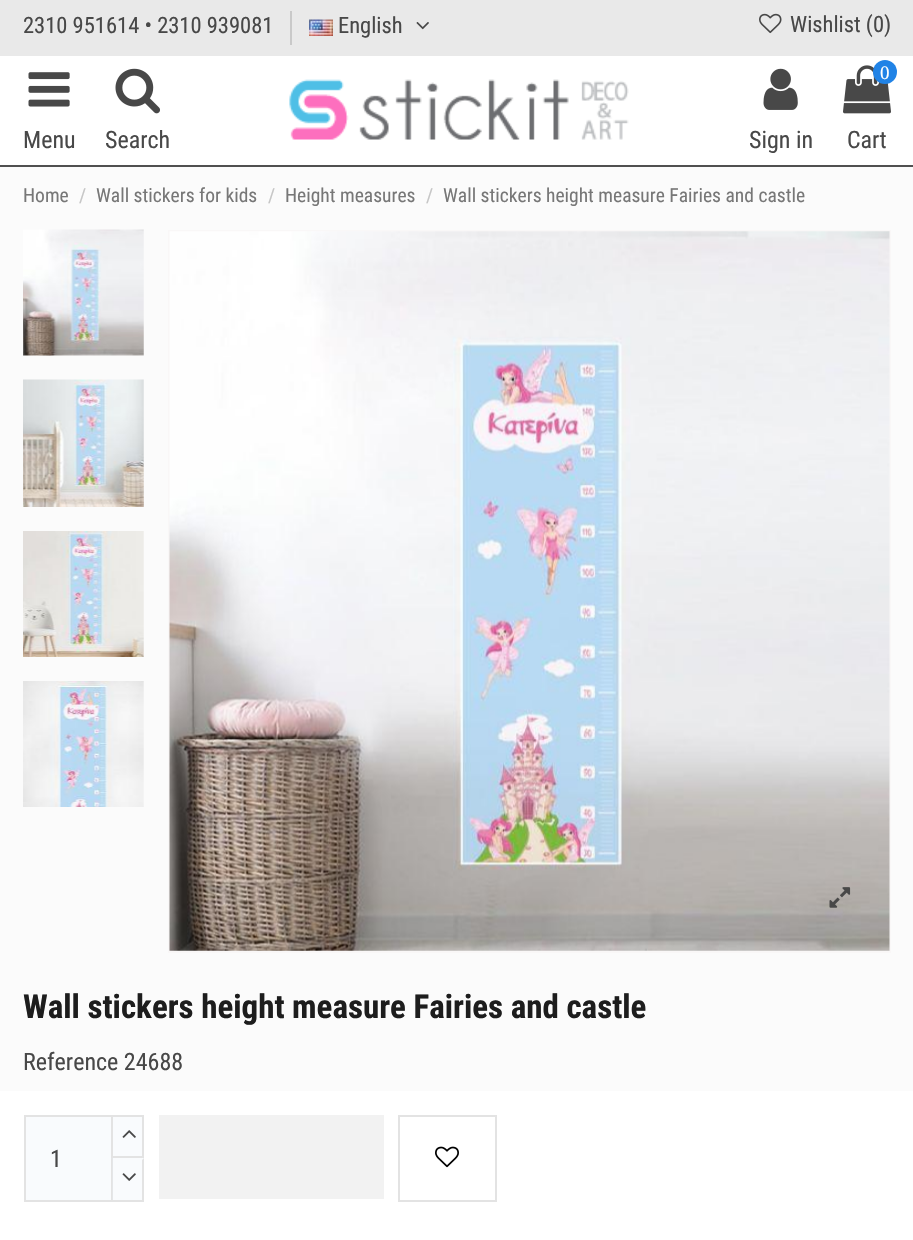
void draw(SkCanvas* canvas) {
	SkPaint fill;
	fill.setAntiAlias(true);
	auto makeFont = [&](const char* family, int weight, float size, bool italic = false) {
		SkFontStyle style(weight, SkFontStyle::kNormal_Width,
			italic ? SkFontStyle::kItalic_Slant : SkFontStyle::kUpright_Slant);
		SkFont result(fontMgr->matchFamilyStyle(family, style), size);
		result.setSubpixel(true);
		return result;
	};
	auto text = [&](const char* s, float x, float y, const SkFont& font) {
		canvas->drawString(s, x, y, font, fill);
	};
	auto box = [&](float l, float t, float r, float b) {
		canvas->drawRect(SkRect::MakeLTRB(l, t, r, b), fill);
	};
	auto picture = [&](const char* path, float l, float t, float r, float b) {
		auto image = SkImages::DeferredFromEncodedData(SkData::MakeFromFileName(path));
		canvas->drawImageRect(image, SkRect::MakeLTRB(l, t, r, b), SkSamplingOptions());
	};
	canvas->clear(0xFFFBFBFB);
	fill.setColor(0xFFFFFFFF);
	box(0, 56, 913, 165);
	fill.setColor(0xFFE9E9E9);
	box(0, 0, 913, 56);
	fill.setColor(0xFFC9C9C9);
	box(290, 11, 292, 45);
	picture("image0.png", 309, 19, 333, 36);
	picture("image1.png", 416, 22, 429, 30);
	picture("image2.png", 759, 13, 782, 34);
	picture("image3.png", 28, 72, 70, 107);
	picture("image4.png", 115, 68, 160, 114);
	picture("image5.png", 289, 79, 629, 140);
	picture("image6.png", 763, 68, 798, 110);
	picture("image7.png", 843, 65, 891, 114);
	fill.setColor(0xFF2183E6);
	canvas->drawCircle(885, 72, 12, fill);
	fill.setColor(0xFF505050);
	box(0, 165, 913, 167);
	picture("image8.png", 23, 229, 144, 356);
	picture("image9.png", 23, 379, 144, 507);
	picture("image10.png", 23, 531, 144, 657);
	picture("image11.png", 23, 681, 144, 807);
	fill.setStyle(SkPaint::kStroke_Style);
	fill.setStrokeWidth(2);
	fill.setColor(0xFFF9F7F7);
	canvas->drawRect(SkRect::MakeLTRB(169, 231, 890, 952), fill);
	picture("image12.png", 169, 231, 890, 951);
	picture("image13.png", 829, 887, 851, 908);
	fill.setStyle(SkPaint::kFill_Style);
	fill.setColor(0xFFFFFFFF);
	box(0, 1091, 913, 1240);
	fill.setColor(0xFFF9FBFD);
	canvas->drawRect(SkRect::MakeLTRB(25, 1116, 112, 1201), fill);
	fill.setStyle(SkPaint::kStroke_Style);
	fill.setColor(0xFFE3E3E3);
	canvas->drawRect(SkRect::MakeLTRB(25, 1116, 112, 1201), fill);
	fill.setStyle(SkPaint::kFill_Style);
	fill.setColor(0x42E6F0F7);
	canvas->drawRect(SkRect::MakeLTRB(112, 1116, 143, 1157), fill);
	fill.setStyle(SkPaint::kStroke_Style);
	fill.setColor(0xFFE3E3E3);
	canvas->drawRect(SkRect::MakeLTRB(112, 1116, 143, 1157), fill);
	picture("image14.png", 122, 1130, 136, 1138);
	fill.setStyle(SkPaint::kFill_Style);
	fill.setColor(0x42E6F0F7);
	box(111, 1158, 144, 1200);
	fill.setColor(0xFFE3E3E3);
	canvas->drawPath(SkPathBuilder().moveTo(144, 1158).lineTo(144, 1202).lineTo(142, 1200).lineTo(142, 1160).close().detach(), fill);
	box(111, 1200, 144, 1202);
	canvas->drawPath(SkPathBuilder().moveTo(111, 1202).lineTo(111, 1158).lineTo(112, 1160).lineTo(112, 1200).close().detach(), fill);
	picture("image15.png", 122, 1173, 136, 1181);
	fill.setColor(0xFFF2F2F2);
	box(159, 1115, 384, 1199);
	fill.setStyle(SkPaint::kStroke_Style);
	fill.setColor(0xFFE3E3E3);
	canvas->drawRect(SkRect::MakeLTRB(399, 1116, 496, 1201), fill);
	picture("image16.png", 435, 1146, 459, 1168);
	auto font1 = makeFont("Roboto Condensed", 400, 22.5f);
	fill.setStyle(SkPaint::kFill_Style);
	fill.setColor(0xFF484848);
	text("2310 951614 • 2310 939081", 23, 33, font1);
	text("English", 338, 33, font1);
	text("Wishlist (0)", 790, 32, font1);
	auto font2 = makeFont("Roboto Condensed", 400, 24);
	text("Menu", 23, 148, font2);
	text("Search", 105, 148, font2);
	text("Sign in", 749, 148, font2);
	auto font3 = makeFont("Liberation Serif", 400, 19);
	fill.setColor(0xFFFFFFFF);
	text("0", 880, 79, font3);
	fill.setColor(0xFF484848);
	text("Cart", 847, 148, font2);
	auto font4 = makeFont("Roboto Condensed", 400, 19.5f);
	fill.setColor(0xFF777777);
	text("Home", 23, 202, font4);
	fill.setColor(0xFFC6C6C6);
	text("/", 79, 202, font4);
	fill.setColor(0xFF777777);
	text("Wall stickers for kids", 96, 202, font4);
	fill.setColor(0xFFC6C6C6);
	text("/", 268, 202, font4);
	fill.setColor(0xFF777777);
	text("Height measures", 285, 202, font4);
	fill.setColor(0xFFC6C6C6);
	text("/", 426, 202, font4);
	fill.setColor(0xFF777777);
	text("Wall stickers height measure Fairies and castle", 443, 202, font4);
	auto font5 = makeFont("Roboto Condensed", 700, 33);
	fill.setColor(0xFF1D1D1D);
	text("Wall stickers height measure Fairies and castle", 23, 1018, font5);
	fill.setColor(0xFF484848);
	text("Reference 24688", 23, 1070, font2);
	text("1", 50, 1167, font2);
}
